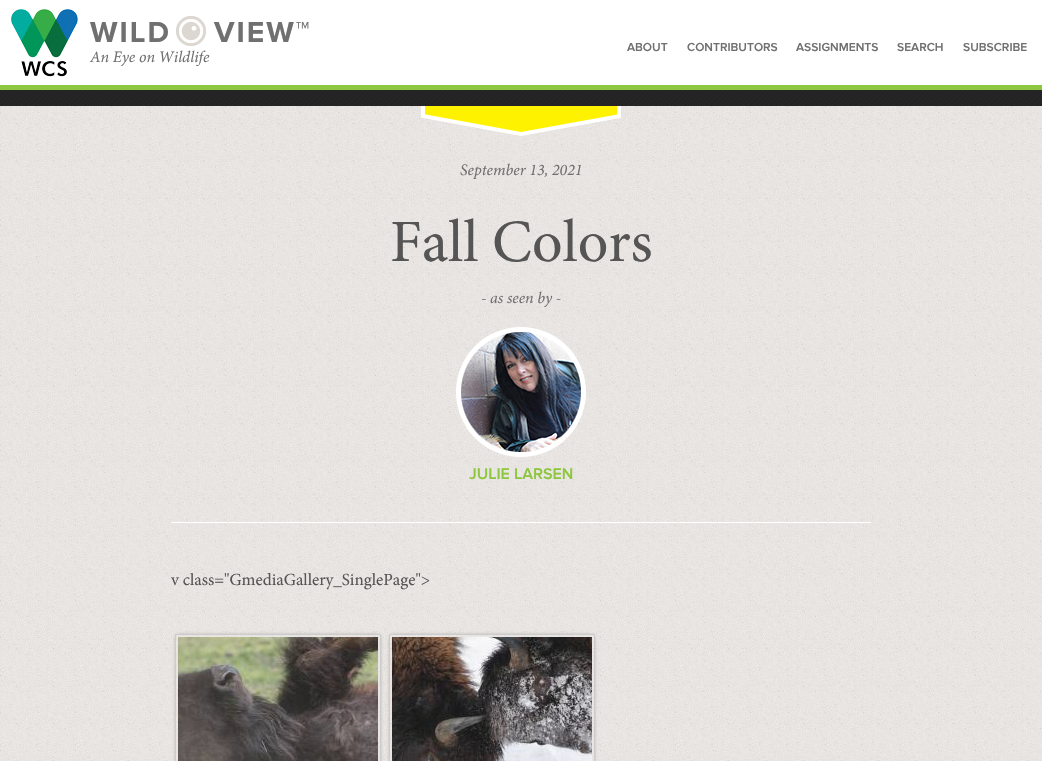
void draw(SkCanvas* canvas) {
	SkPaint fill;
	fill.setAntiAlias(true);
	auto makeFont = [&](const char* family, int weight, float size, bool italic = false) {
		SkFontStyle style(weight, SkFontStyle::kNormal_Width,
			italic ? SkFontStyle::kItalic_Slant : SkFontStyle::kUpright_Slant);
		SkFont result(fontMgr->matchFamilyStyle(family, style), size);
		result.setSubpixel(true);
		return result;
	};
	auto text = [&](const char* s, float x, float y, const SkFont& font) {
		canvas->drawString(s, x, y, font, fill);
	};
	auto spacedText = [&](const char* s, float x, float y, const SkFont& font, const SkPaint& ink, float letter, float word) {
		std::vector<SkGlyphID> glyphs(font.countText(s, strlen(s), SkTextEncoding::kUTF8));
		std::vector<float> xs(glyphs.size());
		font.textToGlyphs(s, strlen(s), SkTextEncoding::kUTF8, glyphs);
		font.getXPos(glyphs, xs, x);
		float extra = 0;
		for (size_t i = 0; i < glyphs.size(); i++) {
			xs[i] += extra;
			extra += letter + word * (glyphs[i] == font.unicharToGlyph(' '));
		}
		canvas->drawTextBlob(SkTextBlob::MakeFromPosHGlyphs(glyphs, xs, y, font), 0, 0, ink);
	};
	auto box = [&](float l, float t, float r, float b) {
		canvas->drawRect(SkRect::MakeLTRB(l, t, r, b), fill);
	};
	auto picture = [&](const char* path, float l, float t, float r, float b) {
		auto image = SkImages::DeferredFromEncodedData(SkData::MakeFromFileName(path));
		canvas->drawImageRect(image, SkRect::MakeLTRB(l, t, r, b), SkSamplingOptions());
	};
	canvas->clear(0xFFFFFFFF);
	picture("image0.png", 0, 106, 1042, 761);
	fill.setColor(0xFF8DC63F);
	box(0, 85, 1042, 90);
	picture("image1.png", 11, 9, 78, 77);
	picture("image2.png", 176, 16, 206, 46);
	picture("image3.png", 0, 90, 1042, 106);
	picture("image4.png", 421, 106, 621, 136);
	picture("image5.png", 456, 327, 586, 457);
	fill.setColor(0xFFFFFFFF);
	box(171, 522, 871, 523);
	canvas->save();
	canvas->clipPath(SkPathBuilder(SkPathFillType::kEvenOdd).moveTo(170, 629).lineTo(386, 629).lineTo(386, 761).lineTo(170, 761).close().moveTo(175, 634).lineTo(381, 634).lineTo(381, 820).lineTo(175, 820).close().detach(), true);
	fill.setColor(0xFF555555);
	fill.setMaskFilter(SkMaskFilter::MakeBlur(kNormal_SkBlurStyle, 2));
	canvas->drawRect(SkRect::MakeLTRB(177, 636, 379, 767), fill);
	fill.setMaskFilter(nullptr);
	canvas->restore();
	picture("image6.png", 270, 724, 286, 731);
	fill.setStyle(SkPaint::kStroke_Style);
	fill.setStrokeWidth(1);
	fill.setColor(0xFFCCCCCC);
	canvas->drawRect(SkRect::MakeLTRB(175.5f, 634.5f, 380.5f, 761.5f), fill);
	picture("image7.png", 178, 637, 378, 761);
	canvas->save();
	canvas->clipPath(SkPathBuilder(SkPathFillType::kEvenOdd).moveTo(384, 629).lineTo(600, 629).lineTo(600, 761).lineTo(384, 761).close().moveTo(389, 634).lineTo(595, 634).lineTo(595, 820).lineTo(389, 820).close().detach(), true);
	fill.setStyle(SkPaint::kFill_Style);
	fill.setColor(0xFF555555);
	fill.setMaskFilter(SkMaskFilter::MakeBlur(kNormal_SkBlurStyle, 2));
	canvas->drawRect(SkRect::MakeLTRB(391, 636, 593, 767), fill);
	fill.setMaskFilter(nullptr);
	canvas->restore();
	picture("image8.png", 484, 724, 500, 731);
	fill.setStyle(SkPaint::kStroke_Style);
	fill.setColor(0xFFCCCCCC);
	canvas->drawRect(SkRect::MakeLTRB(389.5f, 634.5f, 594.5f, 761.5f), fill);
	picture("image9.png", 392, 637, 592, 761);
	auto font1 = makeFont("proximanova", 700, 30);
	fill.setStyle(SkPaint::kFill_Style);
	fill.setColor(0xFF707070);
	spacedText("WILD", 90, 42, font1, fill, 2, 0);
	spacedText("VIEW™", 214, 42, font1, fill, 2, 0);
	auto font2 = makeFont("proximanova", 600, 12);
	text("ABOUT", 627, 51, font2);
	text("CONTRIBUTORS", 687, 51, font2);
	text("ASSIGNMENTS", 796, 51, font2);
	text("SEARCH", 897, 51, font2);
	text("SUBSCRIBE", 963, 51, font2);
	auto font3 = makeFont("minion", 400, 16, true);
	text("An Eye on Wildlife", 90, 62, font3);
	text("September 13, 2021", 460, 175, font3);
	auto font4 = makeFont("minion", 400, 60);
	fill.setColor(0xFF555555);
	text("Fall Colors", 390, 261, font4);
	fill.setColor(0xFF707070);
	text("- as seen by -", 481, 303, font3);
	auto font5 = makeFont("proximanova", 600, 16);
	fill.setColor(0xFF8DC63F);
	text("JULIE LARSEN", 469, 479, font5);
	auto font6 = makeFont("minion", 400, 17);
	fill.setColor(0xFF555555);
	text("v class=\"GmediaGallery_SinglePage\">", 171, 585, font6);
}
